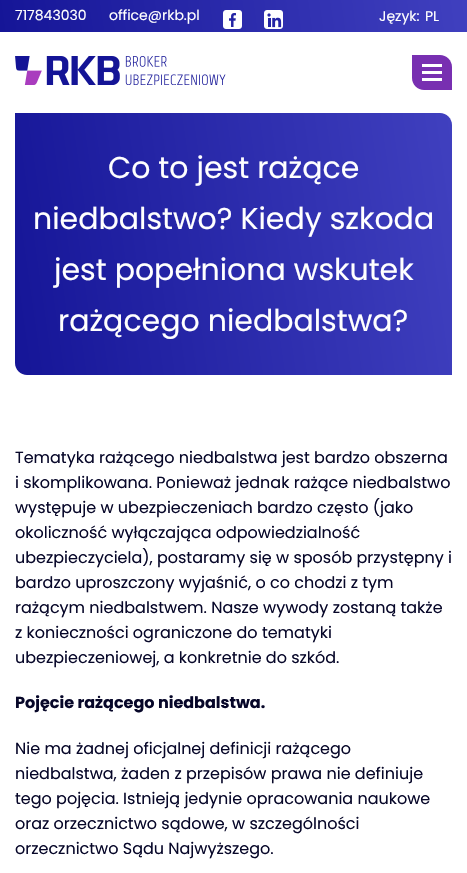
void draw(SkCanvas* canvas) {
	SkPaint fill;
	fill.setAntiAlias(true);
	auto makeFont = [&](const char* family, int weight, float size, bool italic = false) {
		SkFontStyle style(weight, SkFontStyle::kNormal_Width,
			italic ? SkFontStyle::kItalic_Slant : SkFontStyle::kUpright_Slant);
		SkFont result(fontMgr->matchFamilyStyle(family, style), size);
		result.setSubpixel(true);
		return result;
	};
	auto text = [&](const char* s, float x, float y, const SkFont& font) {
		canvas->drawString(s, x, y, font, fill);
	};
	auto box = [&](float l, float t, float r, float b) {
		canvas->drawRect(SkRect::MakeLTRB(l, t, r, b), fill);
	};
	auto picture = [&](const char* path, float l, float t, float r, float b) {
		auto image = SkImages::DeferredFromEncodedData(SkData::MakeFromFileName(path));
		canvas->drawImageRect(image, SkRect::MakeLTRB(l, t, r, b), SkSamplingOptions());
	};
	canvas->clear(0xFFFFFFFF);
	{
		const SkColor colors[] = {0xFF4040BF, 0xFF151597};
		const float stops[] = {0, 1};
		const SkPoint ends[] = {{465, -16}, {2.3f, 48}};
		fill.setShader(SkGradientShader::MakeLinear(ends, colors, stops, 2, SkTileMode::kClamp));
		fill.setAlpha(255);
	}
	box(0, 0, 467, 32);
	picture("image0.png", 223, 10, 242, 29);
	picture("image1.png", 264, 10, 283, 29);
	picture("image2.png", 15, 56, 226, 85);
	fill.setShader(nullptr);
	fill.setColor(0xFF782FB1);
	canvas->drawPath(SkPathBuilder().moveTo(412, 55).lineTo(440, 55).cubicTo(446.5f, 55, 452, 60.5f, 452, 67).lineTo(452, 90).lineTo(424, 90).cubicTo(417.5f, 90, 412, 84.5f, 412, 78).close().detach(), fill);
	fill.setColor(0xFFFFFFFF);
	box(422, 64, 442, 67);
	box(422, 71, 442, 74);
	box(422, 78, 442, 81);
	{
		const SkColor colors[] = {0xFF4040BF, 0xFF151597};
		const float stops[] = {0, 1};
		const SkPoint ends[] = {{466, 211}, {1.2f, 277}};
		fill.setShader(SkGradientShader::MakeLinear(ends, colors, stops, 2, SkTileMode::kClamp));
		fill.setAlpha(255);
	}
	canvas->drawPath(SkPathBuilder().moveTo(15, 113).lineTo(440, 113).cubicTo(446.5f, 113, 452, 118.5f, 452, 125).lineTo(452, 375).lineTo(27, 375).cubicTo(20.5f, 375, 15, 369.5f, 15, 363).close().detach(), fill);
	auto font1 = makeFont("Poppins", 400, 14);
	fill.setShader(nullptr);
	fill.setColor(0xFFFFFFFF);
	text("717843030", 15, 20, font1);
	text("office@rkb.pl", 109, 20, font1);
	text("Język:", 379, 21, font1);
	text("PL", 425, 21, font1);
	auto font2 = makeFont("Poppins", 400, 30);
	text("Co to jest rażące", 108, 178, font2);
	text("niedbalstwo? Kiedy szkoda", 33, 229, font2);
	text("jest popełniona wskutek", 54, 280, font2);
	text("rażącego niedbalstwa?", 58, 331, font2);
	auto font3 = makeFont("Poppins", 400, 16);
	fill.setColor(0xFF070729);
	text("Tematyka rażącego niedbalstwa jest bardzo obszerna", 15, 463, font3);
	text("i skomplikowana. Ponieważ jednak rażące niedbalstwo", 15, 488, font3);
	text("występuje w ubezpieczeniach bardzo często (jako", 15, 513, font3);
	text("okoliczność wyłączająca odpowiedzialność", 15, 538, font3);
	text("ubezpieczyciela), postaramy się w sposób przystępny i", 15, 563, font3);
	text("bardzo uproszczony wyjaśnić, o co chodzi z tym", 15, 588, font3);
	text("rażącym niedbalstwem. Nasze wywody zostaną także", 15, 613, font3);
	text("z konieczności ograniczone do tematyki", 15, 638, font3);
	text("ubezpieczeniowej, a konkretnie do szkód.", 15, 663, font3);
	auto font4 = makeFont("Poppins", 700, 16);
	text("Pojęcie rażącego niedbalstwa.", 15, 708, font4);
	text("Nie ma żadnej oficjalnej definicji rażącego", 15, 754, font3);
	text("niedbalstwa, żaden z przepisów prawa nie definiuje", 15, 779, font3);
	text("tego pojęcia. Istnieją jedynie opracowania naukowe", 15, 804, font3);
	text("oraz orzecznictwo sądowe, w szczególności", 15, 829, font3);
	text("orzecznictwo Sądu Najwyższego.", 15, 854, font3);
}
